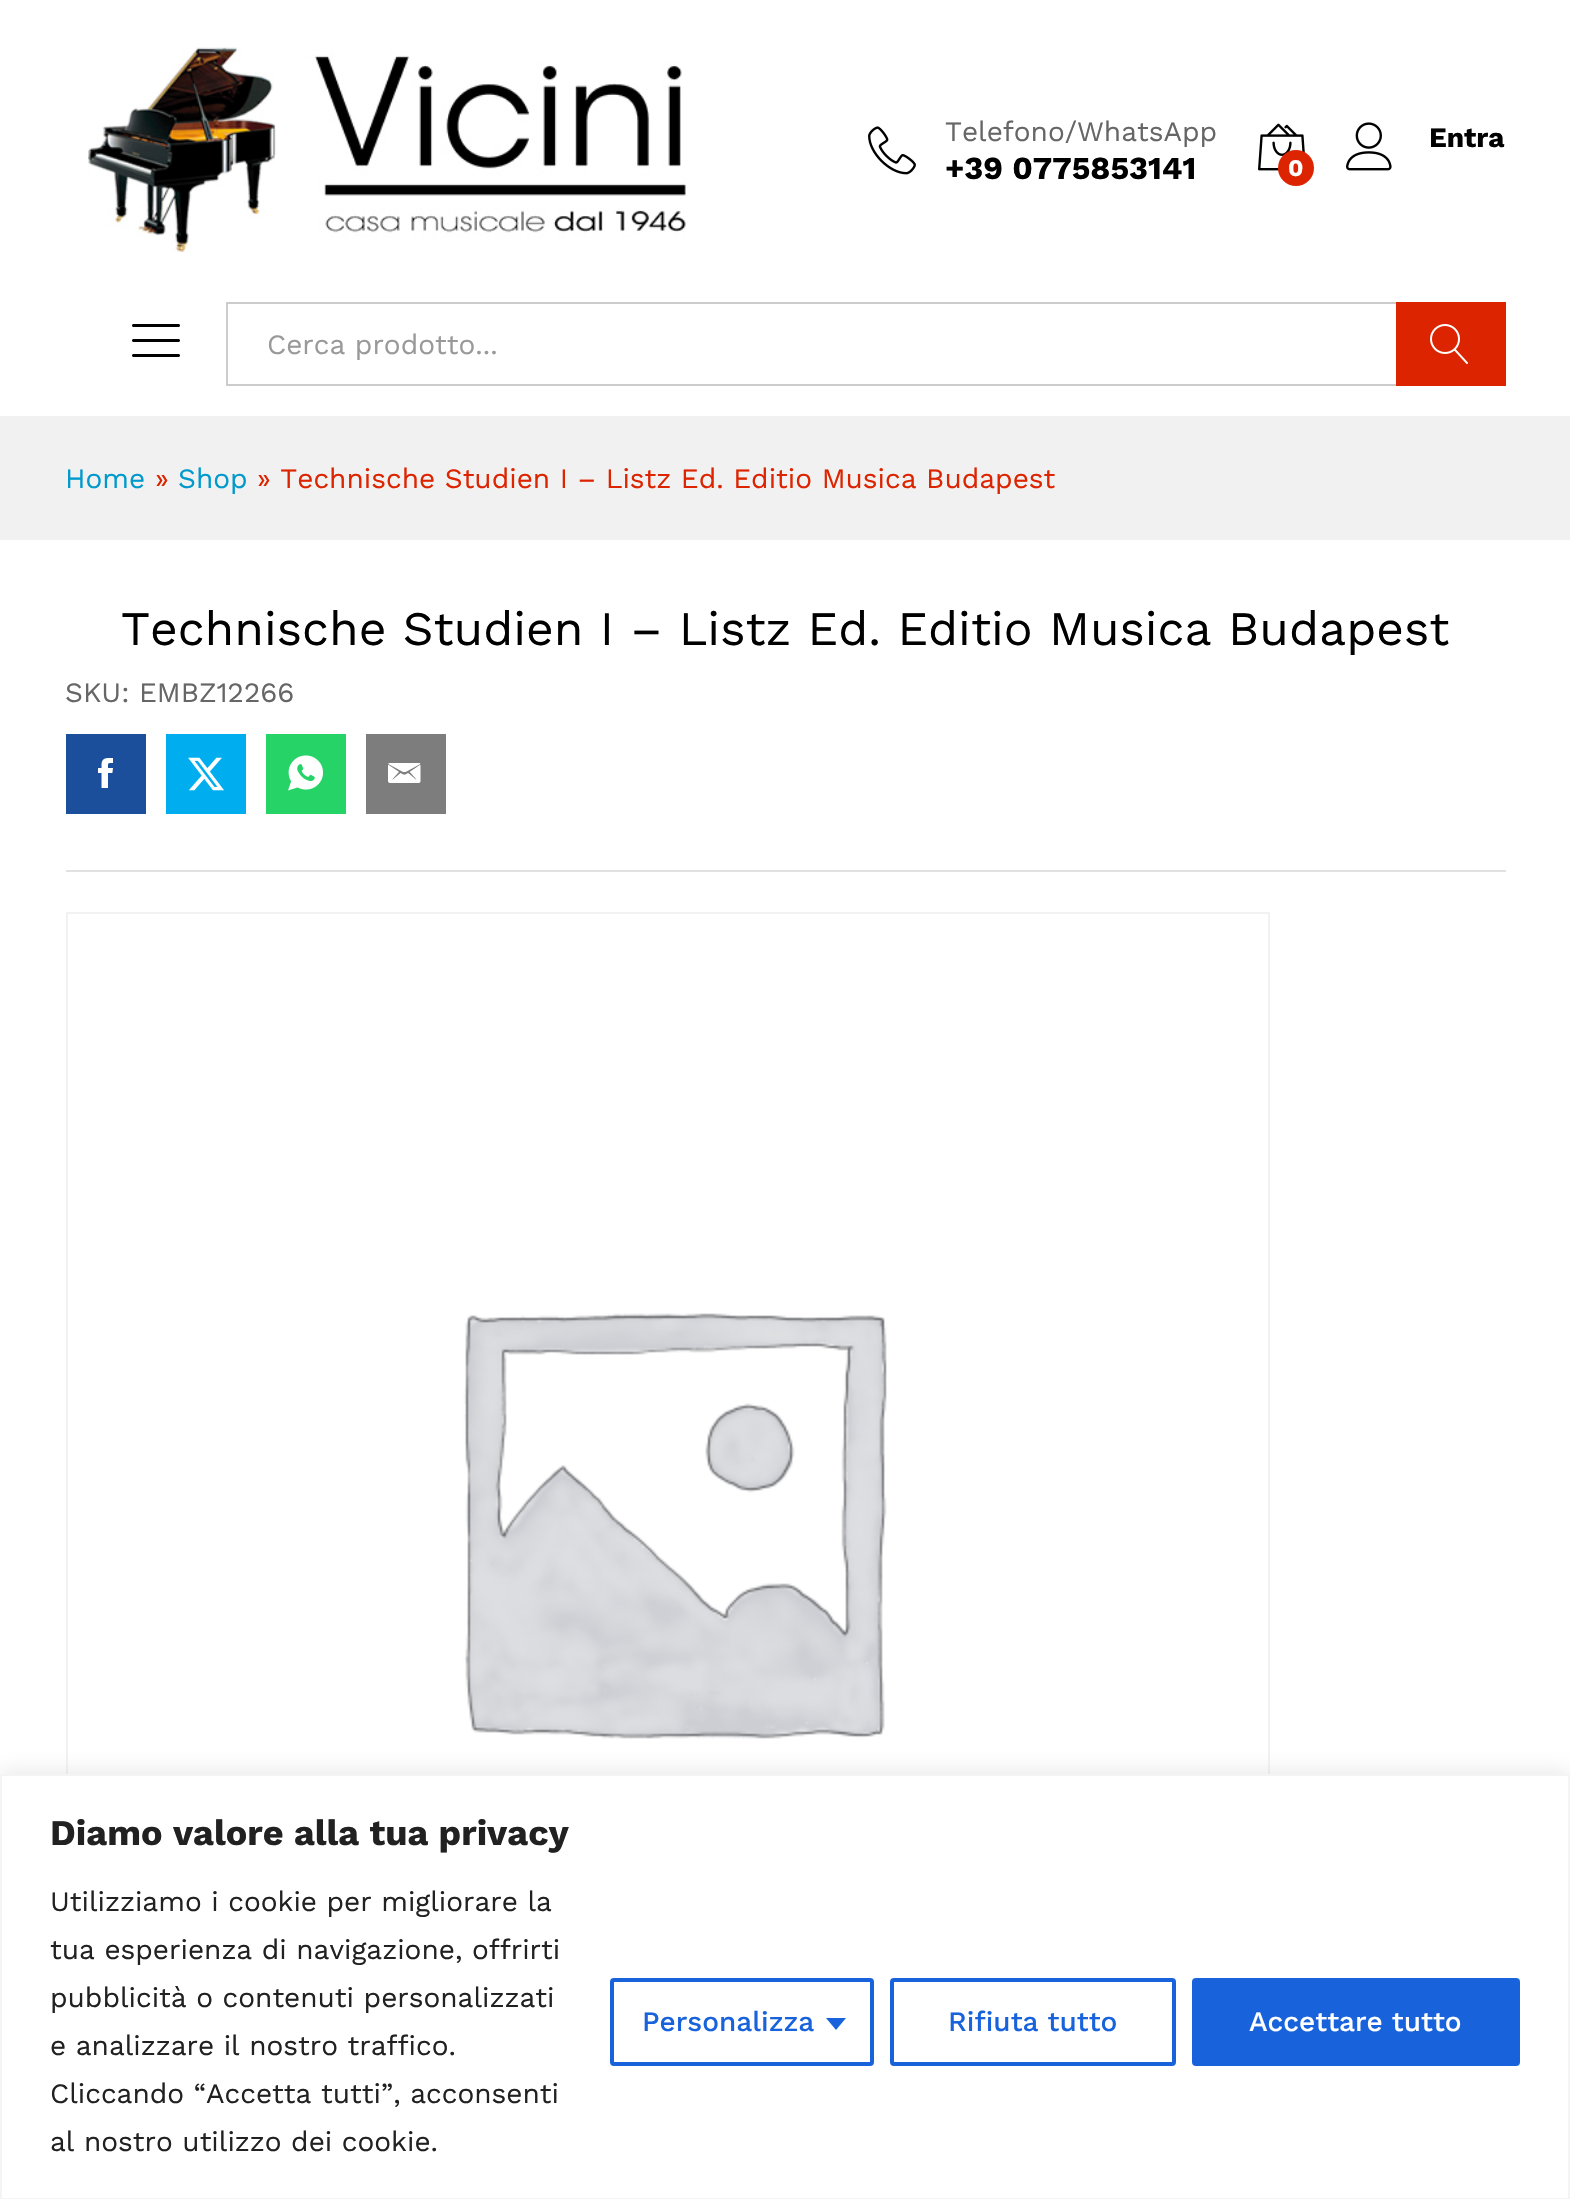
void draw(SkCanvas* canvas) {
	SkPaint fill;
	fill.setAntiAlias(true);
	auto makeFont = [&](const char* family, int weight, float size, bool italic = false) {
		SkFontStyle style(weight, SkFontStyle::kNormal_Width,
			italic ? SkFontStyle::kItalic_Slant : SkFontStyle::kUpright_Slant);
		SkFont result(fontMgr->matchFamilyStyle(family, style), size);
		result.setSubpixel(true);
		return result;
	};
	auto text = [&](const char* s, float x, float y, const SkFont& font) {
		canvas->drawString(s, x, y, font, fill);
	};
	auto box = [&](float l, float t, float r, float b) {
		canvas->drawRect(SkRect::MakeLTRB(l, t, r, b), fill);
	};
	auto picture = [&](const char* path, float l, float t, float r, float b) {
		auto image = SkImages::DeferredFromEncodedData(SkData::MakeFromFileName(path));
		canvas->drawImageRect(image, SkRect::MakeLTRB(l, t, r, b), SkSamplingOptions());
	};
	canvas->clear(0xFFFFFFFF);
	picture("image0.png", 88, 47, 686, 252);
	picture("image1.png", 868, 126, 916, 175);
	picture("image2.png", 1346, 122, 1392, 171);
	picture("image3.png", 1258, 123, 1305, 171);
	fill.setColor(0xFFDD2400);
	canvas->drawCircle(1296, 168, 18, fill);
	picture("image4.png", 132, 324, 180, 357);
	fill.setColor(0xFFCCCCCC);
	box(226, 302, 1396, 304);
	box(226, 384, 1396, 386);
	box(226, 302, 228, 386);
	fill.setColor(0xFFDD2400);
	box(1396, 302, 1506, 386);
	picture("image5.png", 1430, 324, 1468, 364);
	fill.setColor(0xFFF1F1F1);
	box(0, 416, 1570, 540);
	fill.setColor(0xFFE1E1E1);
	box(66, 870, 1506, 872);
	fill.setColor(0xFF1B4E9B);
	box(66, 734, 146, 814);
	picture("image6.png", 98, 758, 113, 788);
	fill.setColor(0xFF00AEEF);
	box(166, 734, 246, 814);
	picture("image7.png", 188, 757, 224, 791);
	fill.setColor(0xFF25D366);
	box(266, 734, 346, 814);
	picture("image8.png", 288, 755, 323, 791);
	fill.setColor(0xFF7D7D7D);
	box(366, 734, 446, 814);
	picture("image9.png", 388, 763, 421, 783);
	fill.setStyle(SkPaint::kStroke_Style);
	fill.setStrokeWidth(2);
	fill.setColor(0xFFF2F2F2);
	canvas->drawRect(SkRect::MakeLTRB(67, 913, 1269, 2051), fill);
	picture("image10.png", 68, 1313, 1268, 1774);
	fill.setStyle(SkPaint::kFill_Style);
	fill.setColor(0x4DACABAB);
	fill.setMaskFilter(SkMaskFilter::MakeBlur(kNormal_SkBlurStyle, 10));
	canvas->drawRect(SkRect::MakeLTRB(0, 1772, 1570, 2198), fill);
	fill.setMaskFilter(nullptr);
	fill.setColor(0xFFFFFFFF);
	canvas->drawRect(SkRect::MakeLTRB(1, 1775, 1569, 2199), fill);
	fill.setStyle(SkPaint::kStroke_Style);
	fill.setColor(0xFFF4F4F4);
	canvas->drawRect(SkRect::MakeLTRB(1, 1775, 1569, 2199), fill);
	fill.setStrokeWidth(4);
	fill.setColor(0xFF1863DC);
	canvas->drawRoundRect(SkRect::MakeLTRB(612, 1980, 872, 2064), 2, 2, fill);
	fill.setStyle(SkPaint::kFill_Style);
	canvas->drawPath(SkPathBuilder().moveTo(826, 2018).lineTo(846, 2018).lineTo(836, 2030).close().detach(), fill);
	fill.setStyle(SkPaint::kStroke_Style);
	canvas->drawRoundRect(SkRect::MakeLTRB(892, 1980, 1174, 2064), 2, 2, fill);
	fill.setStyle(SkPaint::kFill_Style);
	canvas->drawRoundRect(SkRect::MakeLTRB(1194, 1980, 1518, 2064), 2, 2, fill);
	fill.setStyle(SkPaint::kStroke_Style);
	canvas->drawRoundRect(SkRect::MakeLTRB(1194, 1980, 1518, 2064), 2, 2, fill);
	auto font1 = makeFont("Work Sans", 400, 28);
	fill.setStyle(SkPaint::kFill_Style);
	fill.setColor(0xFF666666);
	text("Telefono/WhatsApp", 945, 141, font1);
	auto font2 = makeFont("Work Sans", 700, 32);
	fill.setColor(0xFF000000);
	text("+39 0775853141", 945, 179, font2);
	auto font3 = makeFont("Work Sans", 700, 28);
	text("Entra", 1429, 147, font3);
	auto font4 = makeFont("Work Sans", 700, 24);
	fill.setColor(0xFFFFFFFF);
	text("0", 1288, 176, font4);
	fill.setColor(0xFF999999);
	text("Cerca prodotto...", 267, 354, font1);
	fill.setColor(0xFF0099CC);
	text("Home", 65, 488, font1);
	fill.setColor(0xFFDD2400);
	text("»", 155, 488, font1);
	fill.setColor(0xFF0099CC);
	text("Shop", 178, 488, font1);
	fill.setColor(0xFFDD2400);
	text("» Technische Studien I – Listz Ed. Editio Musica Budapest", 257, 488, font1);
	auto font5 = makeFont("Work Sans", 400, 48);
	fill.setColor(0xFF000000);
	text("Technische Studien I – Listz Ed. Editio Musica Budapest", 121, 645, font5);
	fill.setColor(0xFF666666);
	text("SKU: EMBZ12266", 65, 702, font1);
	auto font6 = makeFont("Work Sans", 700, 36);
	fill.setColor(0xFF212121);
	text("Diamo valore alla tua privacy", 50, 1845, font6);
	text("Utilizziamo i cookie per migliorare la", 50, 1911, font1);
	text("tua esperienza di navigazione, offrirti", 50, 1959, font1);
	text("pubblicità o contenuti personalizzati", 50, 2007, font1);
	text("e analizzare il nostro traffico.", 50, 2055, font1);
	text("Cliccando “Accetta tutti”, acconsenti", 50, 2103, font1);
	text("al nostro utilizzo dei cookie.", 50, 2151, font1);
	auto font7 = makeFont("Work Sans", 500, 28);
	fill.setColor(0xFF1863DC);
	text("Personalizza", 642, 2031, font7);
	text("Rifiuta tutto", 948, 2031, font7);
	fill.setColor(0xFFFFFFFF);
	text("Accettare tutto", 1249, 2031, font7);
}
